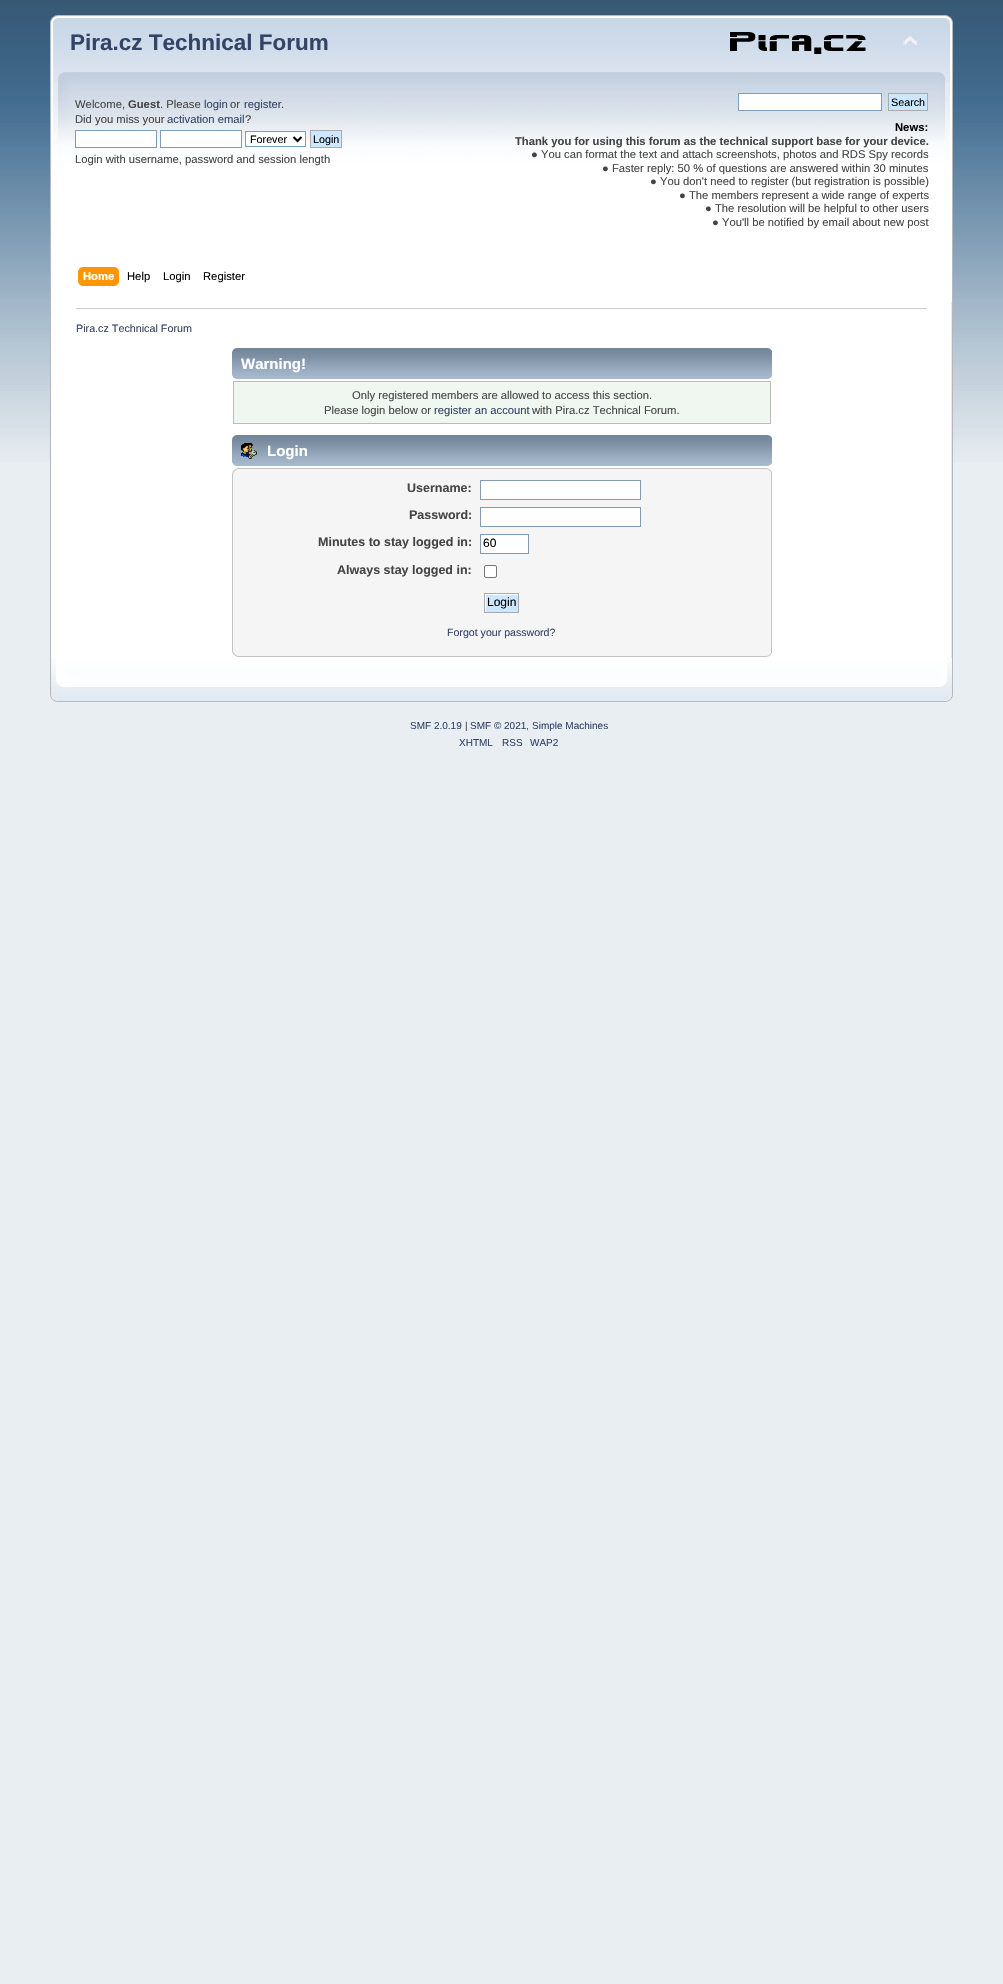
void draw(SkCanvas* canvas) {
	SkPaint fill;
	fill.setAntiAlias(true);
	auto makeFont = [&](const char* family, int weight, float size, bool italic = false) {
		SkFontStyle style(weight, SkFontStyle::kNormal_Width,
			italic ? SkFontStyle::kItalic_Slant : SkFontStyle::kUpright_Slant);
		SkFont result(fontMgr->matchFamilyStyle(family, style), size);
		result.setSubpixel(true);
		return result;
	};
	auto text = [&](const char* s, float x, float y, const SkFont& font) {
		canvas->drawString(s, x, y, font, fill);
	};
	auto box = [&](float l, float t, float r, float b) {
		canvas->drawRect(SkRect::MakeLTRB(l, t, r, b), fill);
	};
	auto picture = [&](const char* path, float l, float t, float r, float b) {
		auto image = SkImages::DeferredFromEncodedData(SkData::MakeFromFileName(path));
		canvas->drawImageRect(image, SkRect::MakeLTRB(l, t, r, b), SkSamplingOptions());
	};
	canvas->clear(0xFFE9EEF2);
	picture("image0.png", 0, 0, 1003, 462);
	picture("image1.png", 50, 15, 939, 302);
	picture("image2.png", 939, 15, 953, 302);
	picture("image3.png", 730, 32, 866, 54);
	picture("image4.png", 903, 35, 918, 47);
	fill.setColor(0xFFFFFFFF);
	canvas->drawRect(SkRect::MakeLTRB(75.5f, 130.5f, 156.5f, 147.5f), fill);
	fill.setStyle(SkPaint::kStroke_Style);
	fill.setStrokeWidth(1);
	fill.setColor(0xFF7F9DB9);
	canvas->drawRect(SkRect::MakeLTRB(75.5f, 130.5f, 156.5f, 147.5f), fill);
	fill.setStyle(SkPaint::kFill_Style);
	fill.setColor(0xFFFFFFFF);
	canvas->drawRect(SkRect::MakeLTRB(160.5f, 130.5f, 241.5f, 147.5f), fill);
	fill.setStyle(SkPaint::kStroke_Style);
	fill.setColor(0xFF7F9DB9);
	canvas->drawRect(SkRect::MakeLTRB(160.5f, 130.5f, 241.5f, 147.5f), fill);
	fill.setStyle(SkPaint::kFill_Style);
	fill.setColor(0xFFFFFFFF);
	canvas->drawRect(SkRect::MakeLTRB(245.5f, 131.5f, 305.5f, 146.5f), fill);
	fill.setStyle(SkPaint::kStroke_Style);
	fill.setColor(0xFF7F9DB9);
	canvas->drawRect(SkRect::MakeLTRB(245.5f, 131.5f, 305.5f, 146.5f), fill);
	fill.setStrokeWidth(2);
	fill.setColor(0xFF000000);
	canvas->drawPath(SkPathBuilder().moveTo(293.5f, 137).lineTo(297.5f, 141).lineTo(301.5f, 137).detach(), fill);
	fill.setStyle(SkPaint::kFill_Style);
	fill.setColor(0xFFCDE7FF);
	canvas->drawRect(SkRect::MakeLTRB(310.5f, 130.5f, 341.5f, 147.5f), fill);
	fill.setStyle(SkPaint::kStroke_Style);
	fill.setStrokeWidth(1);
	fill.setColor(0xFFAAAAAA);
	canvas->drawRect(SkRect::MakeLTRB(310.5f, 130.5f, 341.5f, 147.5f), fill);
	fill.setStyle(SkPaint::kFill_Style);
	fill.setColor(0xFFFFFFFF);
	canvas->drawRect(SkRect::MakeLTRB(738.5f, 93.5f, 881.5f, 110.5f), fill);
	fill.setStyle(SkPaint::kStroke_Style);
	fill.setColor(0xFF7F9DB9);
	canvas->drawRect(SkRect::MakeLTRB(738.5f, 93.5f, 881.5f, 110.5f), fill);
	fill.setStyle(SkPaint::kFill_Style);
	fill.setColor(0xFFCDE7FF);
	canvas->drawRect(SkRect::MakeLTRB(888.5f, 93.5f, 927.5f, 110.5f), fill);
	fill.setStyle(SkPaint::kStroke_Style);
	fill.setColor(0xFFAAAAAA);
	canvas->drawRect(SkRect::MakeLTRB(888.5f, 93.5f, 927.5f, 110.5f), fill);
	picture("image5.png", 83, 267, 119, 286);
	picture("image6.png", 78, 267, 83, 286);
	fill.setStyle(SkPaint::kFill_Style);
	fill.setColor(0xFFFFFFFF);
	box(51, 302, 951, 658);
	fill.setColor(0xFFB7B7B7);
	box(50, 302, 51, 658);
	picture("image7.png", 951, 302, 953, 658);
	fill.setColor(0xFFCCCCCC);
	box(76, 308, 927, 309);
	picture("image8.png", 232, 348, 767, 379);
	picture("image9.png", 767, 348, 772, 379);
	fill.setColor(0xFFF0F6F0);
	canvas->drawRect(SkRect::MakeLTRB(233.5f, 381.5f, 770.5f, 423.5f), fill);
	fill.setStyle(SkPaint::kStroke_Style);
	fill.setColor(0xFFBBBBBB);
	canvas->drawRect(SkRect::MakeLTRB(233.5f, 381.5f, 770.5f, 423.5f), fill);
	picture("image8.png", 232, 435, 767, 466);
	picture("image9.png", 767, 435, 772, 466);
	picture("image10.png", 241, 443, 257, 459);
	picture("image11.png", 232, 468, 766, 479);
	picture("image12.png", 766, 468, 772, 479);
	fill.setStyle(SkPaint::kFill_Style);
	fill.setColor(0xFFF5F5F5);
	box(233, 479, 771, 646);
	fill.setColor(0xFFC5C5C5);
	box(771, 479, 772, 646);
	box(232, 479, 233, 646);
	fill.setColor(0xFFFFFFFF);
	canvas->drawRect(SkRect::MakeLTRB(480.5f, 480.5f, 640.5f, 499.5f), fill);
	fill.setStyle(SkPaint::kStroke_Style);
	fill.setColor(0xFF7F9DB9);
	canvas->drawRect(SkRect::MakeLTRB(480.5f, 480.5f, 640.5f, 499.5f), fill);
	fill.setStyle(SkPaint::kFill_Style);
	fill.setColor(0xFFFFFFFF);
	canvas->drawRect(SkRect::MakeLTRB(480.5f, 507.5f, 640.5f, 526.5f), fill);
	fill.setStyle(SkPaint::kStroke_Style);
	fill.setColor(0xFF7F9DB9);
	canvas->drawRect(SkRect::MakeLTRB(480.5f, 507.5f, 640.5f, 526.5f), fill);
	fill.setStyle(SkPaint::kFill_Style);
	fill.setColor(0xFFFFFFFF);
	canvas->drawRect(SkRect::MakeLTRB(480.5f, 534.5f, 528.5f, 553.5f), fill);
	fill.setStyle(SkPaint::kStroke_Style);
	fill.setColor(0xFF7F9DB9);
	canvas->drawRect(SkRect::MakeLTRB(480.5f, 534.5f, 528.5f, 553.5f), fill);
	fill.setStyle(SkPaint::kFill_Style);
	fill.setColor(0xFFFFFFFF);
	canvas->drawRoundRect(SkRect::MakeLTRB(484.5f, 565.5f, 496.5f, 577.5f), 1.5f, 1.5f, fill);
	fill.setStyle(SkPaint::kStroke_Style);
	fill.setColor(0xFF767676);
	canvas->drawRoundRect(SkRect::MakeLTRB(484.5f, 565.5f, 496.5f, 577.5f), 1.5f, 1.5f, fill);
	picture("image13.png", 485, 594, 518, 612);
	fill.setColor(0xFFAAAAAA);
	canvas->drawRect(SkRect::MakeLTRB(484.5f, 593.5f, 518.5f, 612.5f), fill);
	picture("image14.png", 232, 646, 766, 657);
	picture("image15.png", 766, 646, 772, 657);
	picture("image16.png", 50, 658, 941, 702);
	picture("image17.png", 941, 658, 953, 702);
	auto font1 = makeFont("Liberation Sans", 700, 22.5f);
	fill.setStyle(SkPaint::kFill_Style);
	fill.setColor(0xFF334466);
	text("Pira.cz Technical Forum", 70, 50, font1);
	auto font2 = makeFont("Liberation Sans", 400, 11.25f);
	fill.setColor(0xFF444444);
	text("Welcome,", 75, 108, font2);
	auto font3 = makeFont("Liberation Sans", 700, 11.25f);
	text("Guest", 128, 108, font3);
	text(". Please", 160, 108, font2);
	fill.setColor(0xFF334466);
	text("login", 204, 108, font2);
	fill.setColor(0xFF444444);
	text("or", 230, 108, font2);
	fill.setColor(0xFF334466);
	text("register", 244, 108, font2);
	fill.setColor(0xFF444444);
	text(".", 281, 108, font2);
	text("Did you miss your", 75, 123, font2);
	fill.setColor(0xFF334466);
	text("activation email", 167, 123, font2);
	fill.setColor(0xFF444444);
	text("?", 245, 123, font2);
	auto font4 = makeFont("Liberation Sans", 400, 10.75f);
	fill.setColor(0xFF000000);
	text("Forever", 250, 143, font4);
	text("Login", 313, 143, font4);
	fill.setColor(0xFF444444);
	text("Login with username, password and session length", 75, 163, font2);
	fill.setColor(0xFF000000);
	text("Search", 891, 106, font4);
	text("News:", 895, 131, font3);
	fill.setColor(0xFF444444);
	text("Thank you for using this forum as the technical support base for your device.", 515, 145, font3);
	text("● You can format the text and attach screenshots, photos and RDS Spy records", 531, 158, font2);
	text("● Faster reply: 50 % of questions are answered within 30 minutes", 602, 172, font2);
	text("● You don't need to register (but registration is possible)", 650, 185, font2);
	text("● The members represent a wide range of experts", 679, 199, font2);
	text("● The resolution will be helpful to other users", 705, 212, font2);
	text("● You'll be notified by email about new post", 712, 226, font2);
	fill.setColor(0xFFFFFFFF);
	text("Home", 83, 280, font3);
	fill.setColor(0xFF000000);
	text("Help", 127, 280, font2);
	text("Login", 163, 280, font2);
	text("Register", 203, 280, font2);
	fill.setColor(0xFF334466);
	text("Pira.cz Technical Forum", 76, 332, font4);
	auto font5 = makeFont("Liberation Sans", 700, 15);
	fill.setColor(0xFFFFFFFF);
	text("Warning!", 241, 369, font5);
	fill.setColor(0xFF444444);
	text("Only registered members are allowed to access this section.", 352, 399, font2);
	text("Please login below or", 324, 414, font2);
	fill.setColor(0xFF334466);
	text("register an account", 434, 414, font2);
	fill.setColor(0xFF444444);
	text("with Pira.cz Technical Forum.", 532, 414, font2);
	fill.setColor(0xFFFFFFFF);
	text("Login", 267, 456, font5);
	auto font6 = makeFont("Liberation Sans", 700, 12.5f);
	fill.setColor(0xFF444444);
	text("Username:", 407, 492, font6);
	text("Password:", 409, 519, font6);
	text("Minutes to stay logged in:", 318, 546, font6);
	auto font7 = makeFont("Liberation Sans", 400, 12);
	fill.setColor(0xFF000000);
	text("60", 483, 547, font7);
	fill.setColor(0xFF444444);
	text("Always stay logged in:", 337, 574, font6);
	fill.setColor(0xFF000000);
	text("Login", 487, 606, font7);
	auto font8 = makeFont("Liberation Sans", 400, 10.6f);
	fill.setColor(0xFF334466);
	text("Forgot your password?", 447, 636, font8);
	auto font9 = makeFont("Liberation Sans", 400, 10);
	text("SMF 2.0.19", 410, 729, font9);
	fill.setColor(0xFF444444);
	text("|", 465, 729, font9);
	fill.setColor(0xFF334466);
	text("SMF © 2021", 470, 729, font9);
	fill.setColor(0xFF444444);
	text(",", 526, 729, font9);
	fill.setColor(0xFF334466);
	text("Simple Machines", 532, 729, font9);
	text("XHTML", 459, 746, font9);
	text("RSS", 502, 746, font9);
	text("WAP2", 530, 746, font9);
}
